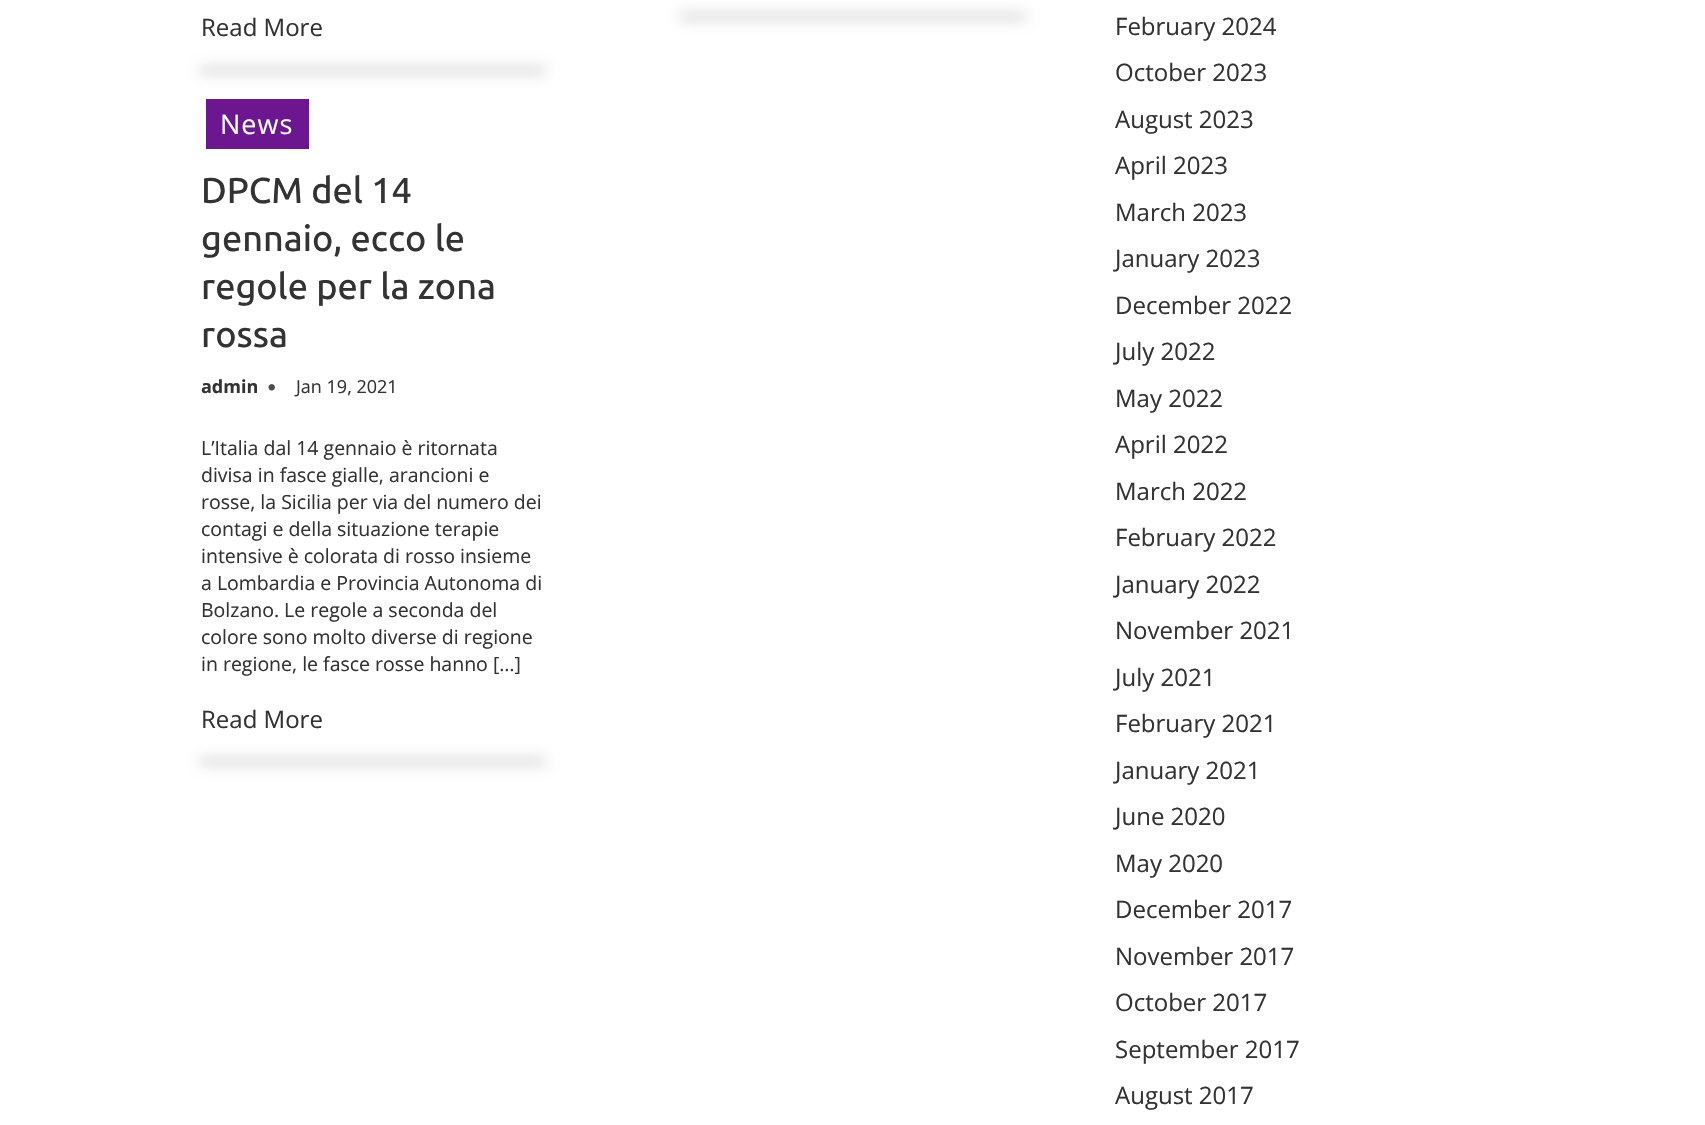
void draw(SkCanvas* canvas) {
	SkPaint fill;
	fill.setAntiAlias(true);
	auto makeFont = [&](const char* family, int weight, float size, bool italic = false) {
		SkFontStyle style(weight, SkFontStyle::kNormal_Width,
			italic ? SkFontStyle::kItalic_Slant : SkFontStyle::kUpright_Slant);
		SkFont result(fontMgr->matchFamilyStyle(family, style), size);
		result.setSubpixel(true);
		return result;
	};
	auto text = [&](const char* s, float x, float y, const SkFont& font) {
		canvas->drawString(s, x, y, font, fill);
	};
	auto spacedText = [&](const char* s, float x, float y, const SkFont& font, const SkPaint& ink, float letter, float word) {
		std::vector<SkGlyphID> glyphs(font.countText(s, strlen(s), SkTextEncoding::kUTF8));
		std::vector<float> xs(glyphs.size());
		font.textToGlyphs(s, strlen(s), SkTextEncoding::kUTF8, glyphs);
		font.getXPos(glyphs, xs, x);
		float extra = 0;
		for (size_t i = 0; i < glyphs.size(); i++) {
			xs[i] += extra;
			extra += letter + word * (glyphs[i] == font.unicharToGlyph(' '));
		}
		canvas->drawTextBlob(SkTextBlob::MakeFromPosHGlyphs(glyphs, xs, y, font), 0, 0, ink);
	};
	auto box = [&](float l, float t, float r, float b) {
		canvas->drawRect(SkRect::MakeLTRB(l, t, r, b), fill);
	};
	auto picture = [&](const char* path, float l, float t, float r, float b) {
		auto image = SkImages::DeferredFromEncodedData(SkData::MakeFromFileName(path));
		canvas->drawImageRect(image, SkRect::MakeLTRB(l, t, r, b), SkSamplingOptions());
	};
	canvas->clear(0xFFFFFFFF);
	fill.setColor(0xFFC3C3C3);
	fill.setMaskFilter(SkMaskFilter::MakeBlur(kNormal_SkBlurStyle, 7));
	canvas->drawRect(SkRect::MakeLTRB(200, 68, 546, 73), fill);
	fill.setMaskFilter(nullptr);
	fill.setMaskFilter(SkMaskFilter::MakeBlur(kNormal_SkBlurStyle, 7));
	canvas->drawRect(SkRect::MakeLTRB(680, 14, 1026, 19), fill);
	fill.setMaskFilter(nullptr);
	fill.setColor(0xFF6C1690);
	box(206, 99, 309, 149);
	picture("image0.png", 268, 384, 275, 391);
	fill.setColor(0xFFC3C3C3);
	fill.setMaskFilter(SkMaskFilter::MakeBlur(kNormal_SkBlurStyle, 7));
	canvas->drawRect(SkRect::MakeLTRB(200, 759, 546, 764), fill);
	fill.setMaskFilter(nullptr);
	auto font1 = makeFont("Open Sans", 400, 24);
	fill.setColor(0xFF333333);
	text("Read More", 201, 36, font1);
	auto font2 = makeFont("Open Sans", 400, 27);
	fill.setColor(0xFFFFFFFF);
	spacedText("News", 220, 134, font2, fill, 1, 0);
	auto font3 = makeFont("Ubuntu", 500, 36);
	fill.setColor(0xFF333333);
	text("DPCM del 14", 201, 203, font3);
	text("gennaio, ecco le", 201, 251, font3);
	text("regole per la zona", 201, 299, font3);
	text("rossa", 201, 347, font3);
	auto font4 = makeFont("Open Sans", 700, 18);
	text("admin", 201, 393, font4);
	auto font5 = makeFont("Open Sans", 400, 18);
	text("Jan 19, 2021", 296, 393, font5);
	auto font6 = makeFont("Open Sans", 400, 19.5f);
	text("L’Italia dal 14 gennaio è ritornata", 201, 455, font6);
	text("divisa in fasce gialle, arancioni e", 201, 482, font6);
	text("rosse, la Sicilia per via del numero dei", 201, 509, font6);
	text("contagi e della situazione terapie", 201, 536, font6);
	text("intensive è colorata di rosso insieme", 201, 563, font6);
	text("a Lombardia e Provincia Autonoma di", 201, 590, font6);
	text("Bolzano. Le regole a seconda del", 201, 617, font6);
	text("colore sono molto diverse di regione", 201, 644, font6);
	text("in regione, le fasce rosse hanno […]", 201, 671, font6);
	text("Read More", 201, 728, font1);
	text("February 2024", 1115, 35, font1);
	text("October 2023", 1115, 81, font1);
	text("August 2023", 1115, 128, font1);
	text("April 2023", 1115, 174, font1);
	text("March 2023", 1115, 221, font1);
	text("January 2023", 1115, 267, font1);
	text("December 2022", 1115, 314, font1);
	text("July 2022", 1115, 360, font1);
	text("May 2022", 1115, 407, font1);
	text("April 2022", 1115, 453, font1);
	text("March 2022", 1115, 500, font1);
	text("February 2022", 1115, 546, font1);
	text("January 2022", 1115, 593, font1);
	text("November 2021", 1115, 639, font1);
	text("July 2021", 1115, 686, font1);
	text("February 2021", 1115, 732, font1);
	text("January 2021", 1115, 779, font1);
	text("June 2020", 1115, 825, font1);
	text("May 2020", 1115, 872, font1);
	text("December 2017", 1115, 918, font1);
	text("November 2017", 1115, 965, font1);
	text("October 2017", 1115, 1011, font1);
	text("September 2017", 1115, 1058, font1);
	text("August 2017", 1115, 1104, font1);
}
